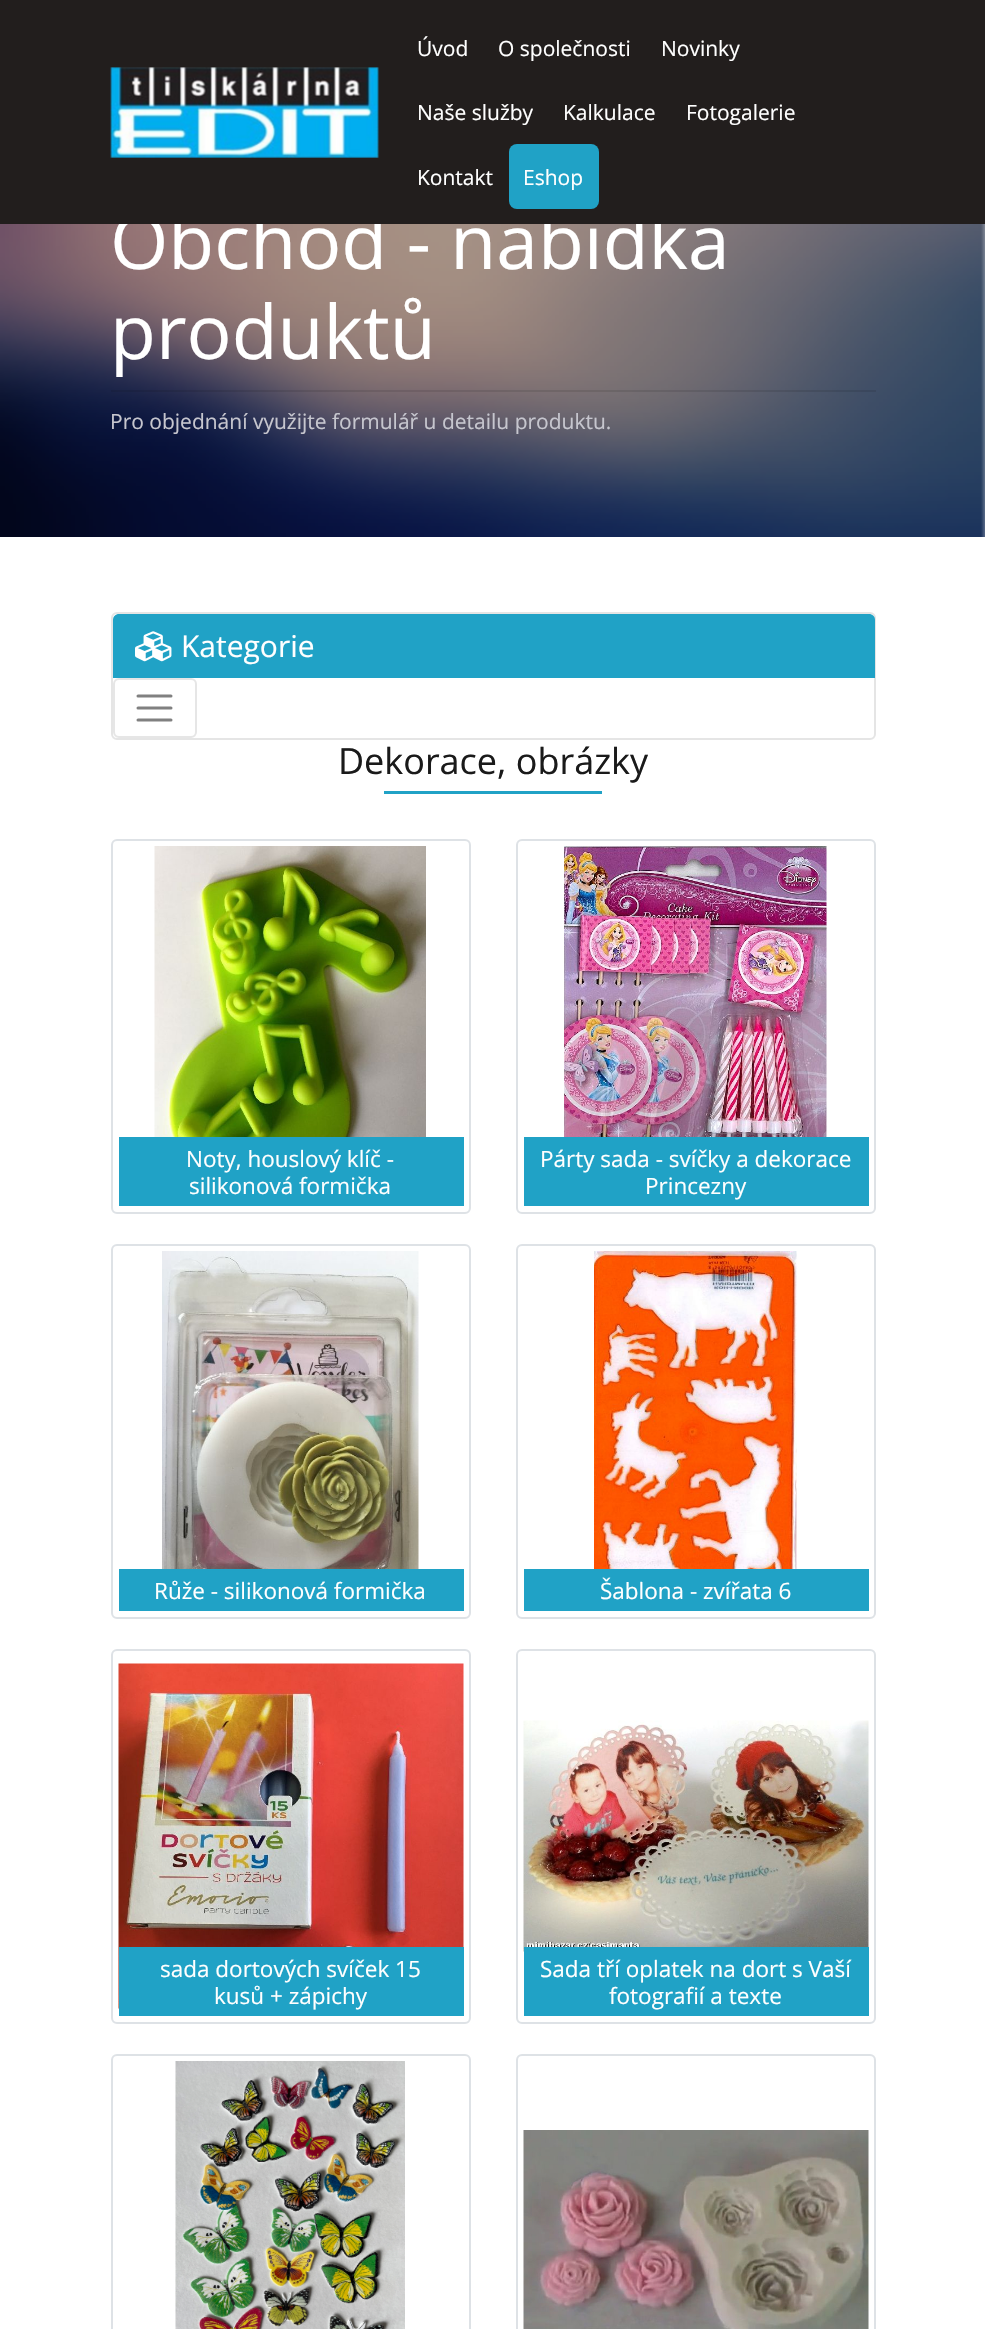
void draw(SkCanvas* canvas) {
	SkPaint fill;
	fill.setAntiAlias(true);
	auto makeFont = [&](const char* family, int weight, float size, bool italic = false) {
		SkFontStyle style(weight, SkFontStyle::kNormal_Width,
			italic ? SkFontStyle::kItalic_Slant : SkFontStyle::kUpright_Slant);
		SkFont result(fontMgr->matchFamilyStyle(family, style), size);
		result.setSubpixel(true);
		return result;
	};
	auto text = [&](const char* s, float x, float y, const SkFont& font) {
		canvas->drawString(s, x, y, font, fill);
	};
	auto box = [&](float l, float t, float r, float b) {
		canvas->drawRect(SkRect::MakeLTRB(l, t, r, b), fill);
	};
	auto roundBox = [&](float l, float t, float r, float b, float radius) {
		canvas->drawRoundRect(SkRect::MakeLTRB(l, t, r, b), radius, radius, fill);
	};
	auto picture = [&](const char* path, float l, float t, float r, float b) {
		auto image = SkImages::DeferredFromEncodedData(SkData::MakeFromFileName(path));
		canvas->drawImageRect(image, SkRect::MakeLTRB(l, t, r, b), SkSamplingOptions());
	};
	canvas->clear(0xFFFFFFFF);
	picture("image0.png", 0, 224, 985, 537);
	fill.setColor(0x1A000000);
	box(111, 390, 876, 392);
	fill.setStyle(SkPaint::kStroke_Style);
	fill.setStrokeWidth(2);
	fill.setColor(0xFFE5E5E5);
	canvas->drawRoundRect(SkRect::MakeLTRB(112, 613, 875, 739), 5, 5, fill);
	fill.setStyle(SkPaint::kFill_Style);
	fill.setColor(0xFF20A2C6);
	canvas->drawPath(SkPathBuilder().moveTo(119, 614).lineTo(869, 614).cubicTo(872.5f, 614, 875, 616.5f, 875, 620).lineTo(875, 678).lineTo(113, 678).lineTo(113, 620).cubicTo(113, 616.5f, 115.5f, 614, 119, 614).close().detach(), fill);
	picture("image2.png", 135, 631, 172, 662);
	fill.setStyle(SkPaint::kStroke_Style);
	fill.setColor(0xFFE6E6E6);
	canvas->drawRoundRect(SkRect::MakeLTRB(114, 679, 196, 737), 5, 5, fill);
	fill.setStrokeWidth(3);
	fill.setStrokeCap(SkPaint::kRound_Cap);
	fill.setColor(0xFF808080);
	canvas->drawPath(SkPathBuilder().moveTo(138, 696).lineTo(171, 696).moveTo(138, 708).lineTo(171, 708).moveTo(138, 720).lineTo(171, 720).detach(), fill);
	fill.setStyle(SkPaint::kFill_Style);
	fill.setColor(0xFF20A2C6);
	box(384, 791, 602, 794);
	fill.setStyle(SkPaint::kStroke_Style);
	fill.setStrokeWidth(2);
	fill.setStrokeCap(SkPaint::kButt_Cap);
	fill.setColor(0xFFDEE2E6);
	canvas->drawRoundRect(SkRect::MakeLTRB(112, 840, 470, 1213), 5, 5, fill);
	picture("image3.png", 154, 846, 426, 1137);
	fill.setStyle(SkPaint::kFill_Style);
	fill.setColor(0xFF20A2C6);
	box(119, 1137, 464, 1206);
	fill.setStyle(SkPaint::kStroke_Style);
	fill.setColor(0xFFDEE2E6);
	canvas->drawRoundRect(SkRect::MakeLTRB(517, 840, 875, 1213), 5, 5, fill);
	picture("image4.png", 564, 846, 827, 1137);
	fill.setStyle(SkPaint::kFill_Style);
	fill.setColor(0xFF20A2C6);
	box(524, 1137, 869, 1206);
	fill.setStyle(SkPaint::kStroke_Style);
	fill.setColor(0xFFDEE2E6);
	canvas->drawRoundRect(SkRect::MakeLTRB(112, 1245, 470, 1618), 5, 5, fill);
	picture("image5.png", 162, 1251, 419, 1569);
	fill.setStyle(SkPaint::kFill_Style);
	fill.setColor(0xFF20A2C6);
	box(119, 1569, 464, 1611);
	fill.setStyle(SkPaint::kStroke_Style);
	fill.setColor(0xFFDEE2E6);
	canvas->drawRoundRect(SkRect::MakeLTRB(517, 1245, 875, 1618), 5, 5, fill);
	picture("image6.png", 594, 1251, 797, 1569);
	fill.setStyle(SkPaint::kFill_Style);
	fill.setColor(0xFF20A2C6);
	box(524, 1569, 869, 1611);
	fill.setStyle(SkPaint::kStroke_Style);
	fill.setColor(0xFFDEE2E6);
	canvas->drawRoundRect(SkRect::MakeLTRB(112, 1650, 470, 2023), 5, 5, fill);
	picture("image7.png", 118, 1663, 464, 2009);
	fill.setStyle(SkPaint::kFill_Style);
	fill.setColor(0xFF20A2C6);
	box(119, 1947, 464, 2016);
	fill.setStyle(SkPaint::kStroke_Style);
	fill.setColor(0xFFDEE2E6);
	canvas->drawRoundRect(SkRect::MakeLTRB(517, 1650, 875, 2023), 5, 5, fill);
	picture("image8.png", 523, 1720, 869, 1952);
	fill.setStyle(SkPaint::kFill_Style);
	fill.setColor(0xFF20A2C6);
	box(524, 1947, 869, 2016);
	fill.setStyle(SkPaint::kStroke_Style);
	fill.setColor(0xFFDEE2E6);
	canvas->drawRoundRect(SkRect::MakeLTRB(112, 2055, 470, 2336), 5, 5, fill);
	picture("image9.png", 175, 2061, 405, 2329);
	canvas->drawRoundRect(SkRect::MakeLTRB(517, 2055, 875, 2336), 5, 5, fill);
	picture("image10.png", 523, 2130, 869, 2329);
	auto font1 = makeFont("Open Sans", 400, 75);
	fill.setStyle(SkPaint::kFill_Style);
	fill.setColor(0xFFFFFFFF);
	text("Obchod - nabídka", 110, 269, font1);
	fill.setColor(0xFF221E1D);
	box(0, 0, 985, 224);
	fill.setColor(0xFF20A2C6);
	roundBox(509, 144, 599, 209, 8);
	auto font2 = makeFont("Open Sans", 400, 21);
	fill.setColor(0xFFFFFFFF);
	text("Eshop", 523, 185, font2);
	text("Kontakt", 417, 185, font2);
	text("Fotogalerie", 686, 120, font2);
	text("Kalkulace", 563, 120, font2);
	text("Naše služby", 417, 120, font2);
	text("Novinky", 661, 56, font2);
	text("O společnosti", 498, 56, font2);
	text("Úvod", 417, 56, font2);
	picture("image1.png", 110, 67, 379, 158);
	text("produktů", 110, 359, font1);
	fill.setColor(0xFFC6C6CE);
	text("Pro objednání využijte formulář u detailu produktu.", 110, 429, font2);
	auto font3 = makeFont("Open Sans", 400, 30);
	fill.setColor(0xFFFFFFFF);
	text("Kategorie", 181, 657, font3);
	auto font4 = makeFont("Open Sans", 400, 36);
	fill.setColor(0xFF1A1A1A);
	text("Dekorace, obrázky", 338, 774, font4);
	auto font5 = makeFont("Open Sans", 400, 22.5f);
	fill.setColor(0xFFFFFFFF);
	text("Noty, houslový klíč -", 186, 1167, font5);
	text("silikonová formička", 189, 1194, font5);
	text("Párty sada - svíčky a dekorace", 540, 1167, font5);
	text("Princezny", 645, 1194, font5);
	text("Růže - silikonová formička", 154, 1599, font5);
	text("Šablona - zvířata 6", 600, 1599, font5);
	text("sada dortových svíček 15", 160, 1977, font5);
	text("kusů + zápichy", 214, 2004, font5);
	text("Sada tří oplatek na dort s Vaší", 540, 1977, font5);
	text("fotografií a texte", 609, 2004, font5);
}
